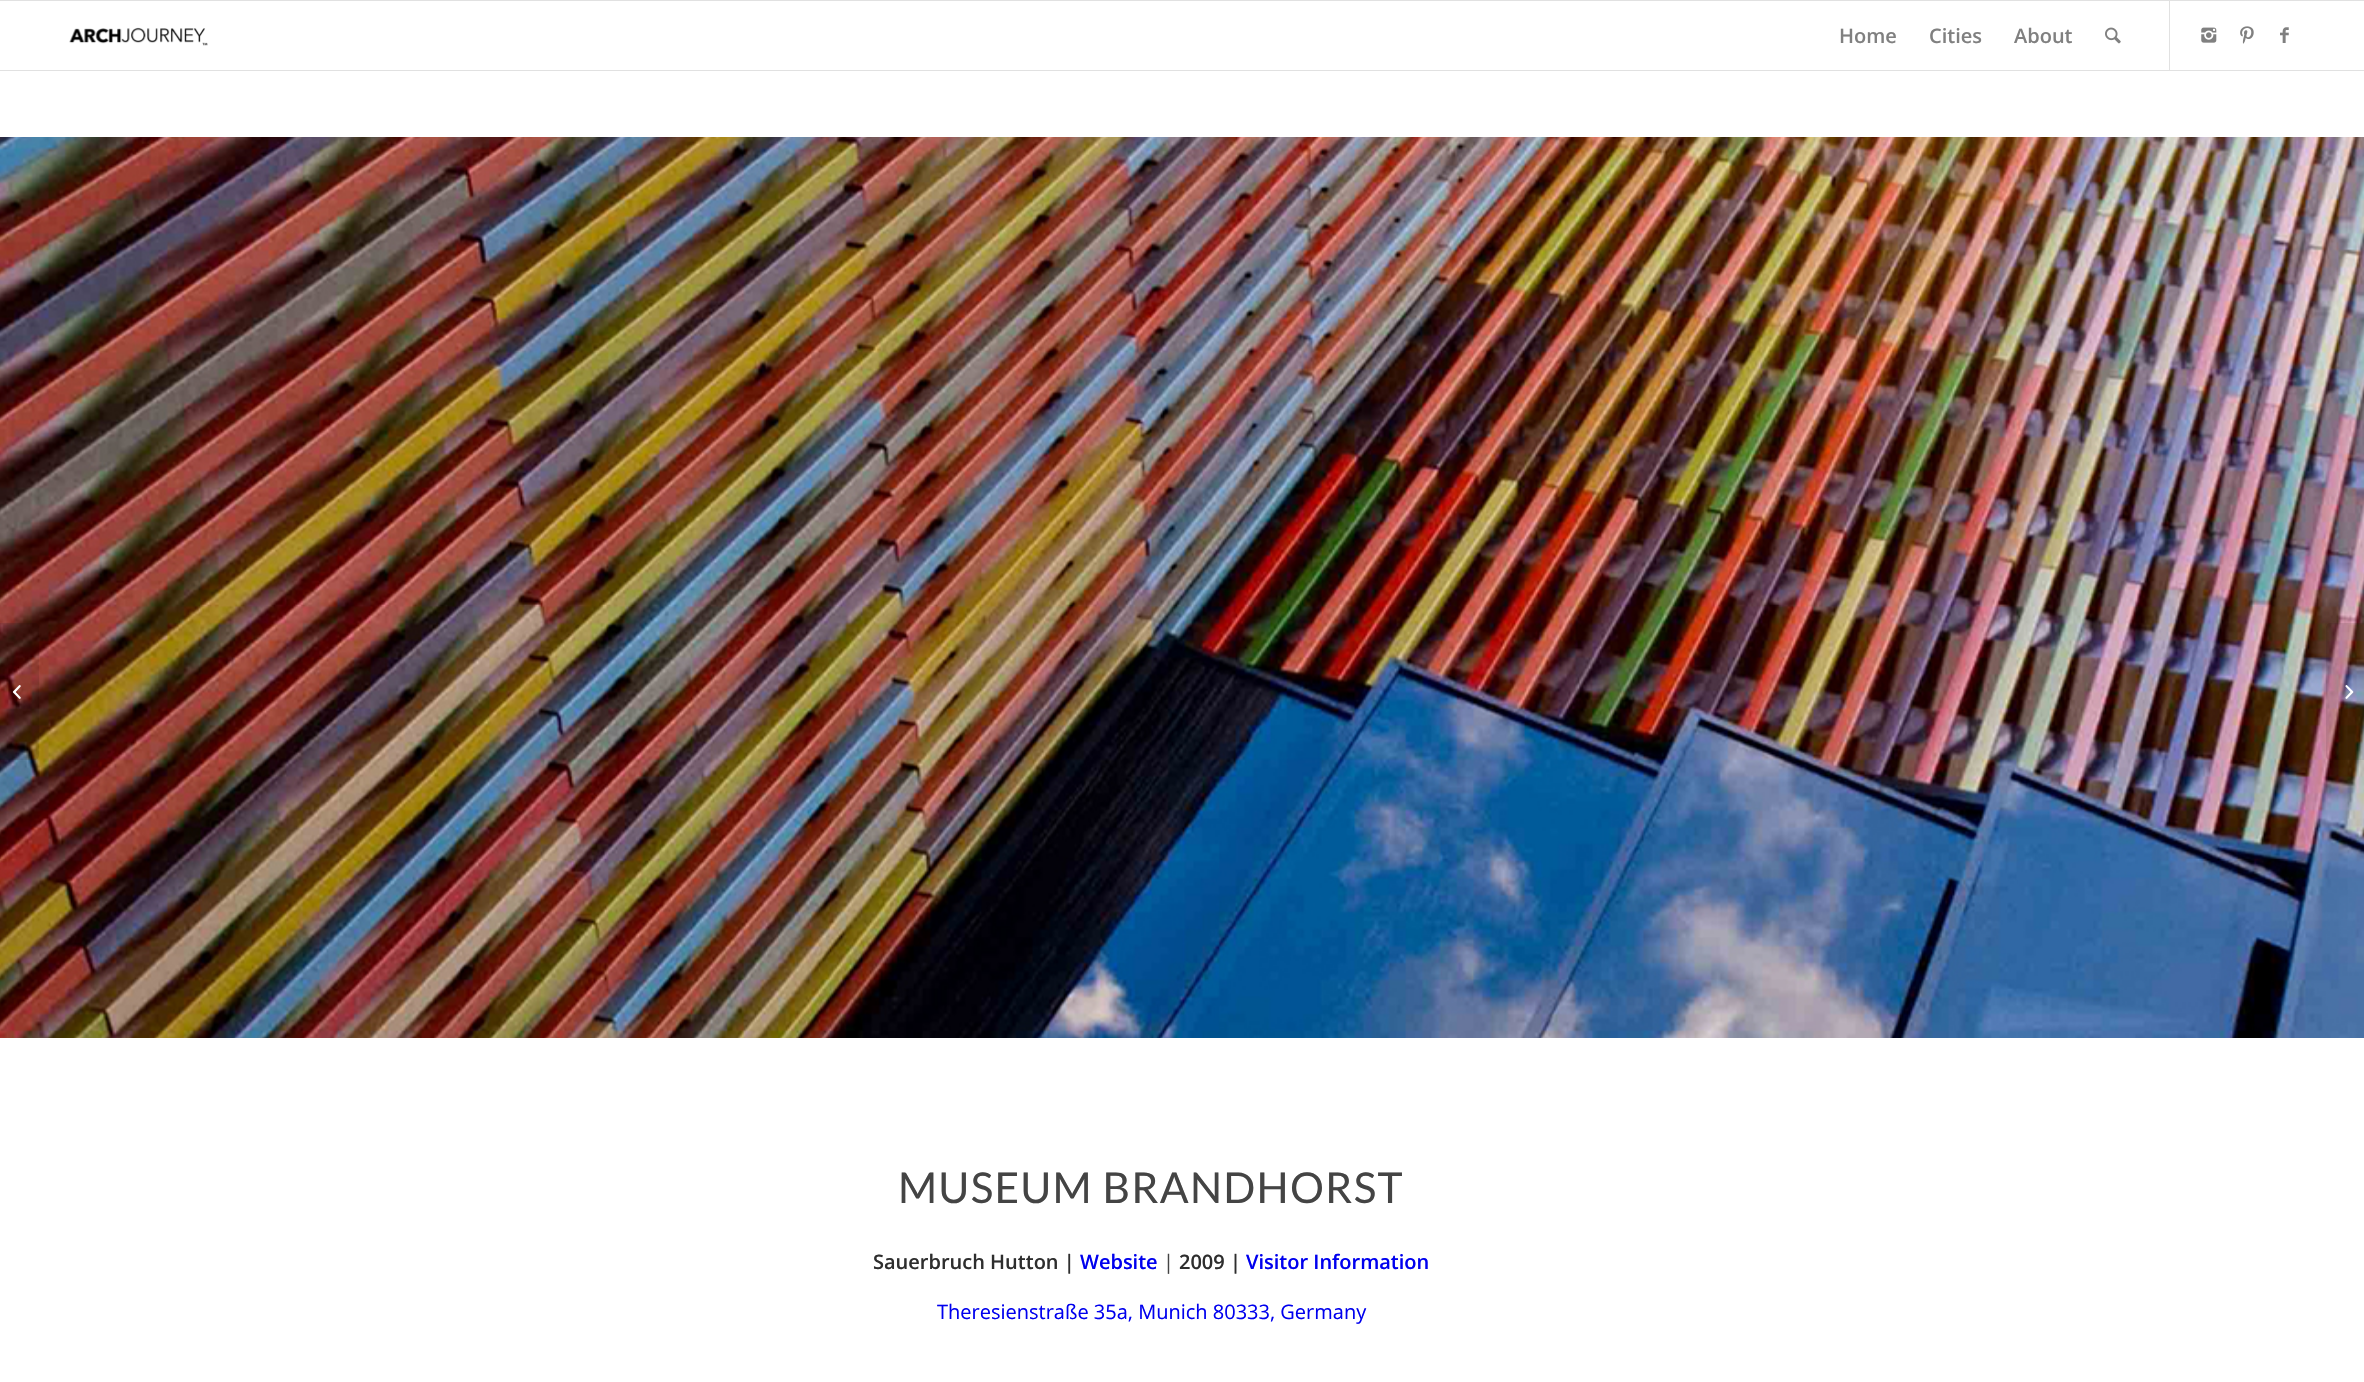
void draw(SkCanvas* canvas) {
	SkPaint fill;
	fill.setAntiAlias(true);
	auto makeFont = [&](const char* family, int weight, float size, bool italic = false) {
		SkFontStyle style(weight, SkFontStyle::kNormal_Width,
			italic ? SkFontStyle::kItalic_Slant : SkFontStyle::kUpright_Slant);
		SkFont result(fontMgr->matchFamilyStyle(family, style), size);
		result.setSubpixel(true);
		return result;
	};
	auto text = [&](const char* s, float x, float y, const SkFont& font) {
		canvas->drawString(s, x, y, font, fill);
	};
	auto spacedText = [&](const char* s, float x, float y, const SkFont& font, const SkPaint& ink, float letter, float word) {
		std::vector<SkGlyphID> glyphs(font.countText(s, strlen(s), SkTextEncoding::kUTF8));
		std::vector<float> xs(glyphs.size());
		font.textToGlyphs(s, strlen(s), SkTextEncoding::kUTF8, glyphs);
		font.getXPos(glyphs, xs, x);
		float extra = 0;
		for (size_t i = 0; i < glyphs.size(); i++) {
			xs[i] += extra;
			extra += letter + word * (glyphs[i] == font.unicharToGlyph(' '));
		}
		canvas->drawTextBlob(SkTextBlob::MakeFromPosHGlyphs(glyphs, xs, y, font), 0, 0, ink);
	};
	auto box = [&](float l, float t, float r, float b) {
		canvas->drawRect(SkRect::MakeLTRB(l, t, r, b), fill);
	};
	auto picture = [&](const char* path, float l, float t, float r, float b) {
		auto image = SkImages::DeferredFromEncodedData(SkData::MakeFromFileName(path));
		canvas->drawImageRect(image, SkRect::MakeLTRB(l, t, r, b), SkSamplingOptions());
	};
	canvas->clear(0xFFFFFFFF);
	picture("image6.png", 0, 137, 2364, 1038);
	fill.setColor(0x1A000000);
	canvas->drawPath(SkPathBuilder().moveTo(0, 623).lineTo(34, 623).cubicTo(37, 623, 39, 625, 39, 628).lineTo(39, 755).cubicTo(39, 758, 37, 760, 34, 760).lineTo(0, 760).close().detach(), fill);
	picture("image0.png", 12, 685, 21, 699);
	fill.setColor(0xFFE1E1E1);
	box(0, 0, 2364, 1);
	box(0, 70, 2364, 71);
	picture("image1.png", 69, 27, 208, 46);
	box(2169, 1, 2170, 70);
	picture("image2.png", 2105, 27, 2121, 44);
	picture("image3.png", 2201, 27, 2217, 43);
	picture("image4.png", 2240, 26, 2254, 44);
	picture("image5.png", 2280, 27, 2289, 43);
	fill.setColor(0x1A000000);
	canvas->drawPath(SkPathBuilder().moveTo(2331, 623).lineTo(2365, 623).lineTo(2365, 760).lineTo(2331, 760).cubicTo(2328, 760, 2326, 758, 2326, 755).lineTo(2326, 628).cubicTo(2326, 625, 2328, 623, 2331, 623).close().detach(), fill);
	picture("image7.png", 2345, 685, 2354, 699);
	auto font1 = makeFont("Open Sans", 600, 20);
	fill.setColor(0xFF808080);
	text("Home", 1839, 43, font1);
	text("Cities", 1929, 43, font1);
	text("About", 2014, 43, font1);
	auto font2 = makeFont("Lato", 400, 42.5f);
	fill.setColor(0xFF444444);
	spacedText("MUSEUM BRANDHORST", 898, 1203, font2, fill, 1.25f, 0);
	fill.setColor(0xFF2E2E2E);
	text("Sauerbruch Hutton |", 873, 1269, font1);
	fill.setColor(0xFF0000EE);
	text("Website", 1080, 1269, font1);
	auto font3 = makeFont("Open Sans", 400, 20);
	fill.setColor(0xFF444444);
	text("|", 1163, 1269, font3);
	fill.setColor(0xFF2E2E2E);
	text("2009 |", 1179, 1269, font1);
	fill.setColor(0xFF0000EE);
	text("Visitor Information", 1246, 1269, font1);
	text("Theresienstraße 35a, Munich 80333, Germany", 937, 1319, font3);
}
